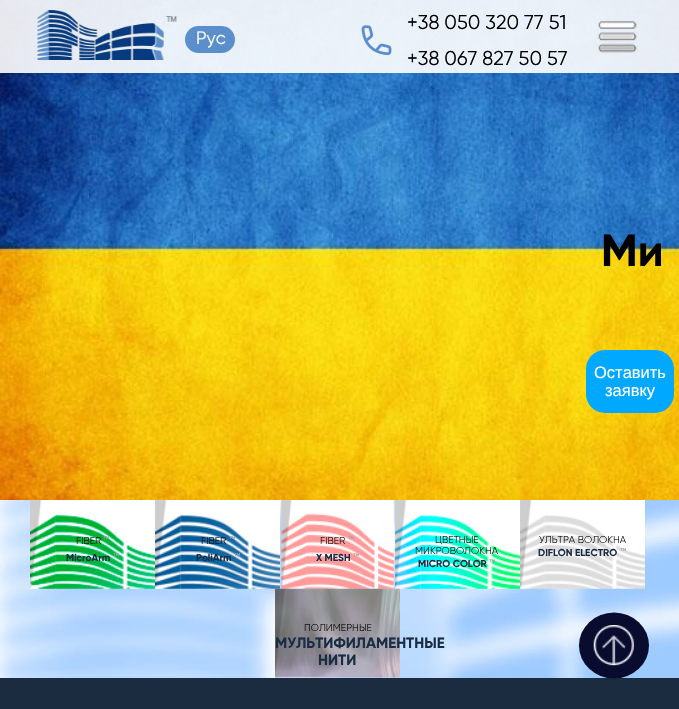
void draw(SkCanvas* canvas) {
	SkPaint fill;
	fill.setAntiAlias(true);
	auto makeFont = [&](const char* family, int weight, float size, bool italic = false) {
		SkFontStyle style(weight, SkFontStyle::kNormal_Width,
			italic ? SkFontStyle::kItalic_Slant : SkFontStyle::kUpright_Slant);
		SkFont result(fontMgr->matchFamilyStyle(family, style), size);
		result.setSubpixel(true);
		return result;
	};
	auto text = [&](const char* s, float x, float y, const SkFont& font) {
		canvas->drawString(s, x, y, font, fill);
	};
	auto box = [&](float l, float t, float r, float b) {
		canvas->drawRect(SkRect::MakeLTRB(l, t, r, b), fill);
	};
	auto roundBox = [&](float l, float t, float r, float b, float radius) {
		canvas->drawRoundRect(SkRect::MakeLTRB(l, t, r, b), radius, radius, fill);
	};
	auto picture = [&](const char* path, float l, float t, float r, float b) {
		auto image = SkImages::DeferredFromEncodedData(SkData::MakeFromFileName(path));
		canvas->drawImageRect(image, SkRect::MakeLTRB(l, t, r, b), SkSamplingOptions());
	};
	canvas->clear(0xFFFFFFFF);
	picture("image11.png", 0, 0, 679, 500);
	fill.setColor(0xE6FFFFFF);
	box(0, 0, 679, 73);
	picture("image0.png", 37, 10, 177, 60);
	fill.setColor(0xFF5A8FCB);
	roundBox(185, 26, 235, 53, 13.5f);
	picture("image1.png", 361, 25, 392, 56);
	picture("image2.png", 598, 21, 637, 53);
	picture("image4.png", 0, 500, 679, 678);
	fill.setColor(0xFF1C2C40);
	box(0, 678, 679, 709);
	fill.setColor(0xFF090B2F);
	canvas->drawOval(SkRect::MakeLTRB(579, 612.5f, 649, 678.5f), fill);
	picture("image3.png", 593, 625, 634, 666);
	picture("image5.png", 30, 500, 155, 589);
	picture("image6.png", 155, 500, 280, 589);
	picture("image7.png", 281, 500, 394, 589);
	picture("image8.png", 395, 500, 520, 589);
	picture("image9.png", 520, 500, 645, 589);
	picture("image10.png", 275, 588, 400, 678);
	fill.setColor(0xFF00A8FF);
	roundBox(586, 350, 674, 413, 19);
	auto font1 = makeFont("Gilroy", 400, 18);
	fill.setColor(0xFFFFFFFF);
	text("Рус", 196, 44, font1);
	auto font2 = makeFont("Gilroy", 400, 20);
	fill.setColor(0xFF000000);
	text("+38 050 320 77 51", 407, 29, font2);
	text("+38 067 827 50 57", 407, 65, font2);
	auto font3 = makeFont("Gilroy", 300, 10);
	text("FIBER", 76, 544, font3);
	auto font4 = makeFont("Gilroy", 400, 14);
	fill.setColor(0xFFA3A3A3);
	text("™", 103, 546, font4);
	auto font5 = makeFont("Gilroy", 700, 10);
	fill.setColor(0xFF192C44);
	text("MicroArm", 66, 561, font5);
	fill.setColor(0xFFA3A3A3);
	text("™", 113, 563, font4);
	fill.setColor(0xFF000000);
	text("FIBER", 201, 544, font3);
	fill.setColor(0xFFA3A3A3);
	text("™", 229, 546, font4);
	fill.setColor(0xFF192C44);
	text("PoliArm", 196, 561, font5);
	fill.setColor(0xFFA3A3A3);
	text("™", 234, 563, font4);
	fill.setColor(0xFF000000);
	text("FIBER", 320, 544, font3);
	fill.setColor(0xFFA3A3A3);
	text("™", 348, 546, font4);
	fill.setColor(0xFF192C44);
	text("X MESH", 316, 561, font5);
	fill.setColor(0xFFA3A3A3);
	text("™", 353, 563, font4);
	fill.setColor(0xFF000000);
	text("ЦВЕТНЫЕ", 435, 543, font3);
	text("МИКРОВОЛОКНА", 415, 554, font3);
	fill.setColor(0xFF192C44);
	text("MICRO COLOR", 418, 567, font5);
	fill.setColor(0xFFA3A3A3);
	text("™", 489, 569, font4);
	fill.setColor(0xFF000000);
	text("УЛЬТРА ВОЛОКНА", 539, 543, font3);
	fill.setColor(0xFF192C44);
	text("DIFLON ELECTRO", 538, 556, font5);
	fill.setColor(0xFFA3A3A3);
	text("™", 620, 558, font4);
	fill.setColor(0xFF000000);
	text("ПОЛИМЕРНЫЕ", 304, 631, font3);
	auto font6 = makeFont("Gilroy", 700, 15);
	fill.setColor(0xFF192C44);
	text("МУЛЬТИФИЛАМЕНТНЫЕ", 275, 648, font6);
	text("НИТИ", 318, 665, font6);
	auto font7 = makeFont("Gilroy", 700, 45);
	fill.setColor(0xFF000000);
	text("Ми", 601, 266, font7);
	auto font8 = makeFont("Liberation Sans", 400, 16.5f);
	fill.setColor(0xFFFFFFFF);
	text("Оставить", 594, 378, font8);
	text("заявку", 605, 396, font8);
}
